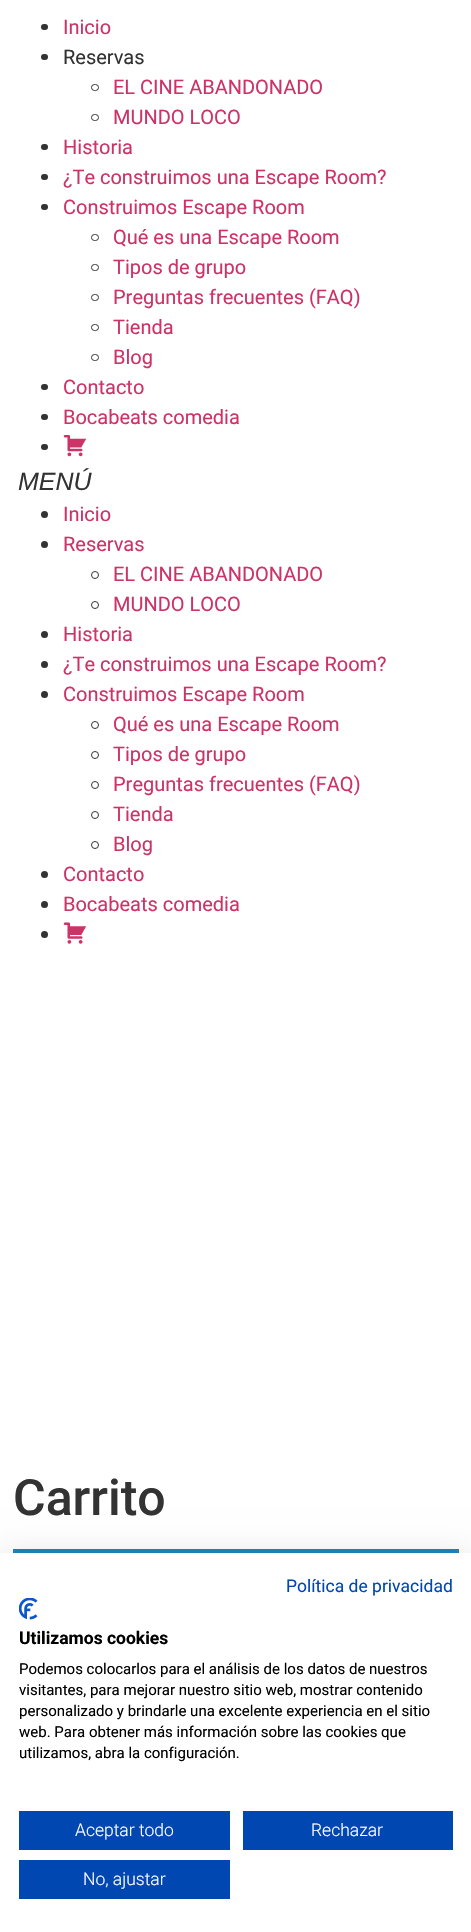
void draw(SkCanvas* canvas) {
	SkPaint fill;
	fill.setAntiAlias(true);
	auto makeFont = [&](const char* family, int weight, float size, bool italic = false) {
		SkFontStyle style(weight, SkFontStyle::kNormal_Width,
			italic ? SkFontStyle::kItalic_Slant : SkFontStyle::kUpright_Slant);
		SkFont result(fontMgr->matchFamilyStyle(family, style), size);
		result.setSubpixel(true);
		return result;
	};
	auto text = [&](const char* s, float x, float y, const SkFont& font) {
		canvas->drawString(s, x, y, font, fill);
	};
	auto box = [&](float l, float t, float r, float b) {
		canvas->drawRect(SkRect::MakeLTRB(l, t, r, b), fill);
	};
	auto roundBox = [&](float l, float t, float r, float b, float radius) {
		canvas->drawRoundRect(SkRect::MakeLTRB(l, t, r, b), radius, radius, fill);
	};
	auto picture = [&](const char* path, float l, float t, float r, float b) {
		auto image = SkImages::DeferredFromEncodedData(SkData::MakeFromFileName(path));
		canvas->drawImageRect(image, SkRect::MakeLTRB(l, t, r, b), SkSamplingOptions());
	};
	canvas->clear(0xFFFFFFFF);
	fill.setColor(0xFF333333);
	roundBox(41, 24, 48, 30, 3);
	roundBox(41, 54, 48, 60, 3);
	fill.setStyle(SkPaint::kStroke_Style);
	fill.setStrokeWidth(1);
	canvas->drawRoundRect(SkRect::MakeLTRB(91.5f, 84.5f, 98.5f, 90.5f), 3, 3, fill);
	canvas->drawRoundRect(SkRect::MakeLTRB(91.5f, 114.5f, 98.5f, 120.5f), 3, 3, fill);
	fill.setStyle(SkPaint::kFill_Style);
	roundBox(41, 144, 48, 150, 3);
	roundBox(41, 174, 48, 180, 3);
	roundBox(41, 204, 48, 210, 3);
	fill.setStyle(SkPaint::kStroke_Style);
	canvas->drawRoundRect(SkRect::MakeLTRB(91.5f, 234.5f, 98.5f, 240.5f), 3, 3, fill);
	canvas->drawRoundRect(SkRect::MakeLTRB(91.5f, 264.5f, 98.5f, 270.5f), 3, 3, fill);
	canvas->drawRoundRect(SkRect::MakeLTRB(91.5f, 294.5f, 98.5f, 300.5f), 3, 3, fill);
	canvas->drawRoundRect(SkRect::MakeLTRB(91.5f, 324.5f, 98.5f, 330.5f), 3, 3, fill);
	canvas->drawRoundRect(SkRect::MakeLTRB(91.5f, 354.5f, 98.5f, 360.5f), 3, 3, fill);
	fill.setStyle(SkPaint::kFill_Style);
	roundBox(41, 384, 48, 390, 3);
	roundBox(41, 414, 48, 420, 3);
	roundBox(41, 444, 48, 450, 3);
	picture("image0.png", 63, 435, 87, 457);
	canvas->drawCircle(44.5f, 514.5f, 3.5f, fill);
	canvas->drawCircle(44.5f, 544.5f, 3.5f, fill);
	fill.setStyle(SkPaint::kStroke_Style);
	canvas->drawCircle(95, 575, 3.5f, fill);
	canvas->drawCircle(95, 605, 3.5f, fill);
	fill.setStyle(SkPaint::kFill_Style);
	canvas->drawCircle(44.5f, 634.5f, 3.5f, fill);
	canvas->drawCircle(44.5f, 664.5f, 3.5f, fill);
	canvas->drawCircle(44.5f, 694.5f, 3.5f, fill);
	fill.setStyle(SkPaint::kStroke_Style);
	canvas->drawCircle(95, 725, 3.5f, fill);
	canvas->drawCircle(95, 755, 3.5f, fill);
	canvas->drawCircle(95, 785, 3.5f, fill);
	canvas->drawCircle(95, 815, 3.5f, fill);
	canvas->drawCircle(95, 845, 3.5f, fill);
	fill.setStyle(SkPaint::kFill_Style);
	canvas->drawCircle(44.5f, 874.5f, 3.5f, fill);
	canvas->drawCircle(44.5f, 904.5f, 3.5f, fill);
	canvas->drawCircle(44.5f, 934.5f, 3.5f, fill);
	picture("image1.png", 63, 922, 87, 944);
	fill.setColor(0xFF1E85BE);
	box(13, 1549, 459, 1553);
	fill.setColor(0x1A000000);
	fill.setMaskFilter(SkMaskFilter::MakeBlur(kNormal_SkBlurStyle, 15));
	canvas->drawRect(SkRect::MakeLTRB(0, 1553, 471, 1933), fill);
	fill.setMaskFilter(nullptr);
	fill.setColor(0xFFFFFFFF);
	box(0, 1553, 471, 1932);
	picture("image2.png", 19, 1598, 38, 1620);
	fill.setColor(0xFF0047B2);
	box(19, 1811, 230, 1850);
	box(243, 1811, 453, 1850);
	box(19, 1860, 230, 1899);
	auto font1 = makeFont("Roboto", 400, 20);
	fill.setColor(0xFFCC3366);
	text("Inicio", 63, 34, font1);
	fill.setColor(0xFF333333);
	text("Reservas", 63, 64, font1);
	fill.setColor(0xFFCC3366);
	text("EL CINE ABANDONADO", 113, 94, font1);
	text("MUNDO LOCO", 113, 124, font1);
	text("Historia", 63, 154, font1);
	text("¿Te construimos una Escape Room?", 63, 184, font1);
	text("Construimos Escape Room", 63, 214, font1);
	text("Qué es una Escape Room", 113, 244, font1);
	text("Tipos de grupo", 113, 274, font1);
	text("Preguntas frecuentes (FAQ)", 113, 304, font1);
	text("Tienda", 113, 334, font1);
	text("Blog", 113, 364, font1);
	text("Contacto", 63, 394, font1);
	text("Bocabeats comedia", 63, 424, font1);
	auto font2 = makeFont("Liberation Sans", 400, 25, true);
	fill.setColor(0xFF333333);
	text("MENÚ", 18, 490, font2);
	fill.setColor(0xFFCC3366);
	text("Inicio", 63, 521, font1);
	text("Reservas", 63, 551, font1);
	text("EL CINE ABANDONADO", 113, 581, font1);
	text("MUNDO LOCO", 113, 611, font1);
	text("Historia", 63, 641, font1);
	text("¿Te construimos una Escape Room?", 63, 671, font1);
	text("Construimos Escape Room", 63, 701, font1);
	text("Qué es una Escape Room", 113, 731, font1);
	text("Tipos de grupo", 113, 761, font1);
	text("Preguntas frecuentes (FAQ)", 113, 791, font1);
	text("Tienda", 113, 821, font1);
	text("Blog", 113, 851, font1);
	text("Contacto", 63, 881, font1);
	text("Bocabeats comedia", 63, 911, font1);
	auto font3 = makeFont("Roboto", 500, 50);
	fill.setColor(0xFF333333);
	text("Carrito", 13, 1515, font3);
	auto font4 = makeFont("Roboto", 400, 17.5f);
	fill.setColor(0xFF0047B2);
	text("Política de privacidad", 286, 1592, font4);
	auto font5 = makeFont("Roboto", 700, 17.5f);
	fill.setColor(0xFF000000);
	text("Utilizamos cookies", 19, 1644, font5);
	auto font6 = makeFont("Roboto", 400, 15);
	text("Podemos colocarlos para el análisis de los datos de nuestros", 19, 1674, font6);
	text("visitantes, para mejorar nuestro sitio web, mostrar contenido", 19, 1695, font6);
	text("personalizado y brindarle una excelente experiencia en el sitio", 19, 1716, font6);
	text("web. Para obtener más información sobre las cookies que", 19, 1737, font6);
	text("utilizamos, abra la configuración.", 19, 1758, font6);
	auto font7 = makeFont("Roboto", 300, 17.5f);
	fill.setColor(0xFFFFFFFF);
	text("Aceptar todo", 75, 1836, font7);
	text("Rechazar", 311, 1836, font7);
	text("No, ajustar", 83, 1885, font7);
}
